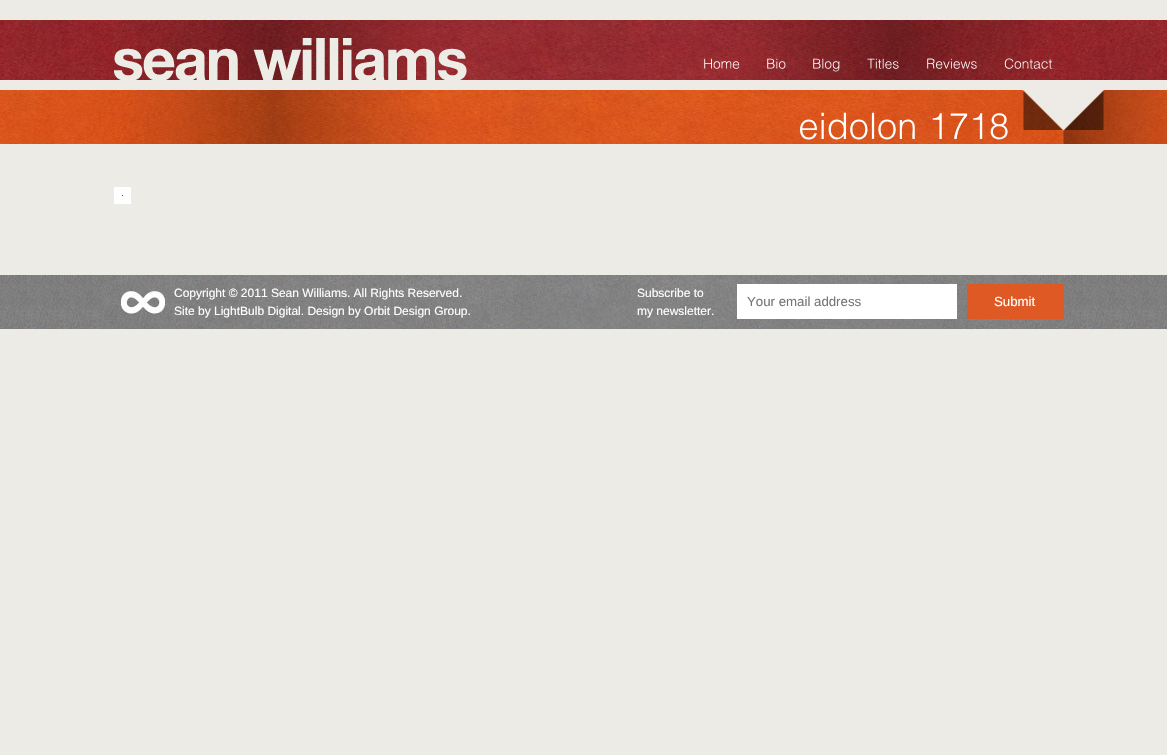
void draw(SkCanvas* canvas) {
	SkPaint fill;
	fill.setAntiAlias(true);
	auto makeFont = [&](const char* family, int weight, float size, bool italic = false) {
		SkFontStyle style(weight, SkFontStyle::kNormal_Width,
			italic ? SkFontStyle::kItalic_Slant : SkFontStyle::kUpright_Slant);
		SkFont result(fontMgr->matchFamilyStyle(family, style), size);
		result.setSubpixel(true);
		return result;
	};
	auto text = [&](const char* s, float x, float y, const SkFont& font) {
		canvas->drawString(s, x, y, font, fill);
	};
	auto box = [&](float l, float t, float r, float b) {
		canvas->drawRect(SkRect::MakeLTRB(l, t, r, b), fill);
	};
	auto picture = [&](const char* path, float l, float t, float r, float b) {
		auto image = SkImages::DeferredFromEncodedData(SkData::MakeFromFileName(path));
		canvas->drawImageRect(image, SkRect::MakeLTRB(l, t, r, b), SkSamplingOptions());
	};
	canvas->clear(0xFFEDEBE5);
	picture("image0.png", 0, 16, 1167, 144);
	picture("image1.png", 114, 38, 467, 80);
	picture("image2.png", 704, 58, 740, 69);
	picture("image3.png", 767, 58, 786, 69);
	picture("image4.png", 813, 58, 840, 72);
	picture("image5.png", 867, 58, 899, 69);
	picture("image6.png", 927, 58, 977, 69);
	picture("image7.png", 1004, 58, 1052, 69);
	picture("image8.png", 800, 112, 915, 140);
	picture("image9.png", 932, 113, 1008, 140);
	fill.setStyle(SkPaint::kStroke_Style);
	fill.setStrokeWidth(8);
	fill.setColor(0xFFFFFFFF);
	canvas->drawRect(SkRect::MakeLTRB(118, 191, 127, 200), fill);
	fill.setStyle(SkPaint::kFill_Style);
	fill.setColor(0xFF6A5152);
	box(122, 195, 123, 196);
	picture("image10.png", 0, 275, 1167, 329);
	picture("image11.png", 104, 275, 1064, 329);
	fill.setColor(0xFFFFFFFF);
	box(737, 284, 957, 319);
	fill.setColor(0xFFDF5924);
	box(967, 284, 1064, 319);
	auto font1 = makeFont("Liberation Sans", 400, 12);
	fill.setColor(0xFFFFFFFF);
	text("Copyright © 2011 Sean Williams. All Rights Reserved.", 174, 297, font1);
	text("Site by LightBulb Digital. Design by Orbit Design Group.", 174, 315, font1);
	text("Subscribe to", 637, 297, font1);
	text("my newsletter.", 637, 315, font1);
	auto font2 = makeFont("Liberation Sans", 400, 13.25f);
	fill.setColor(0xFF757575);
	text("Your email address", 747, 306, font2);
	fill.setColor(0xFFFFFFFF);
	text("Submit", 994, 306, font2);
}
